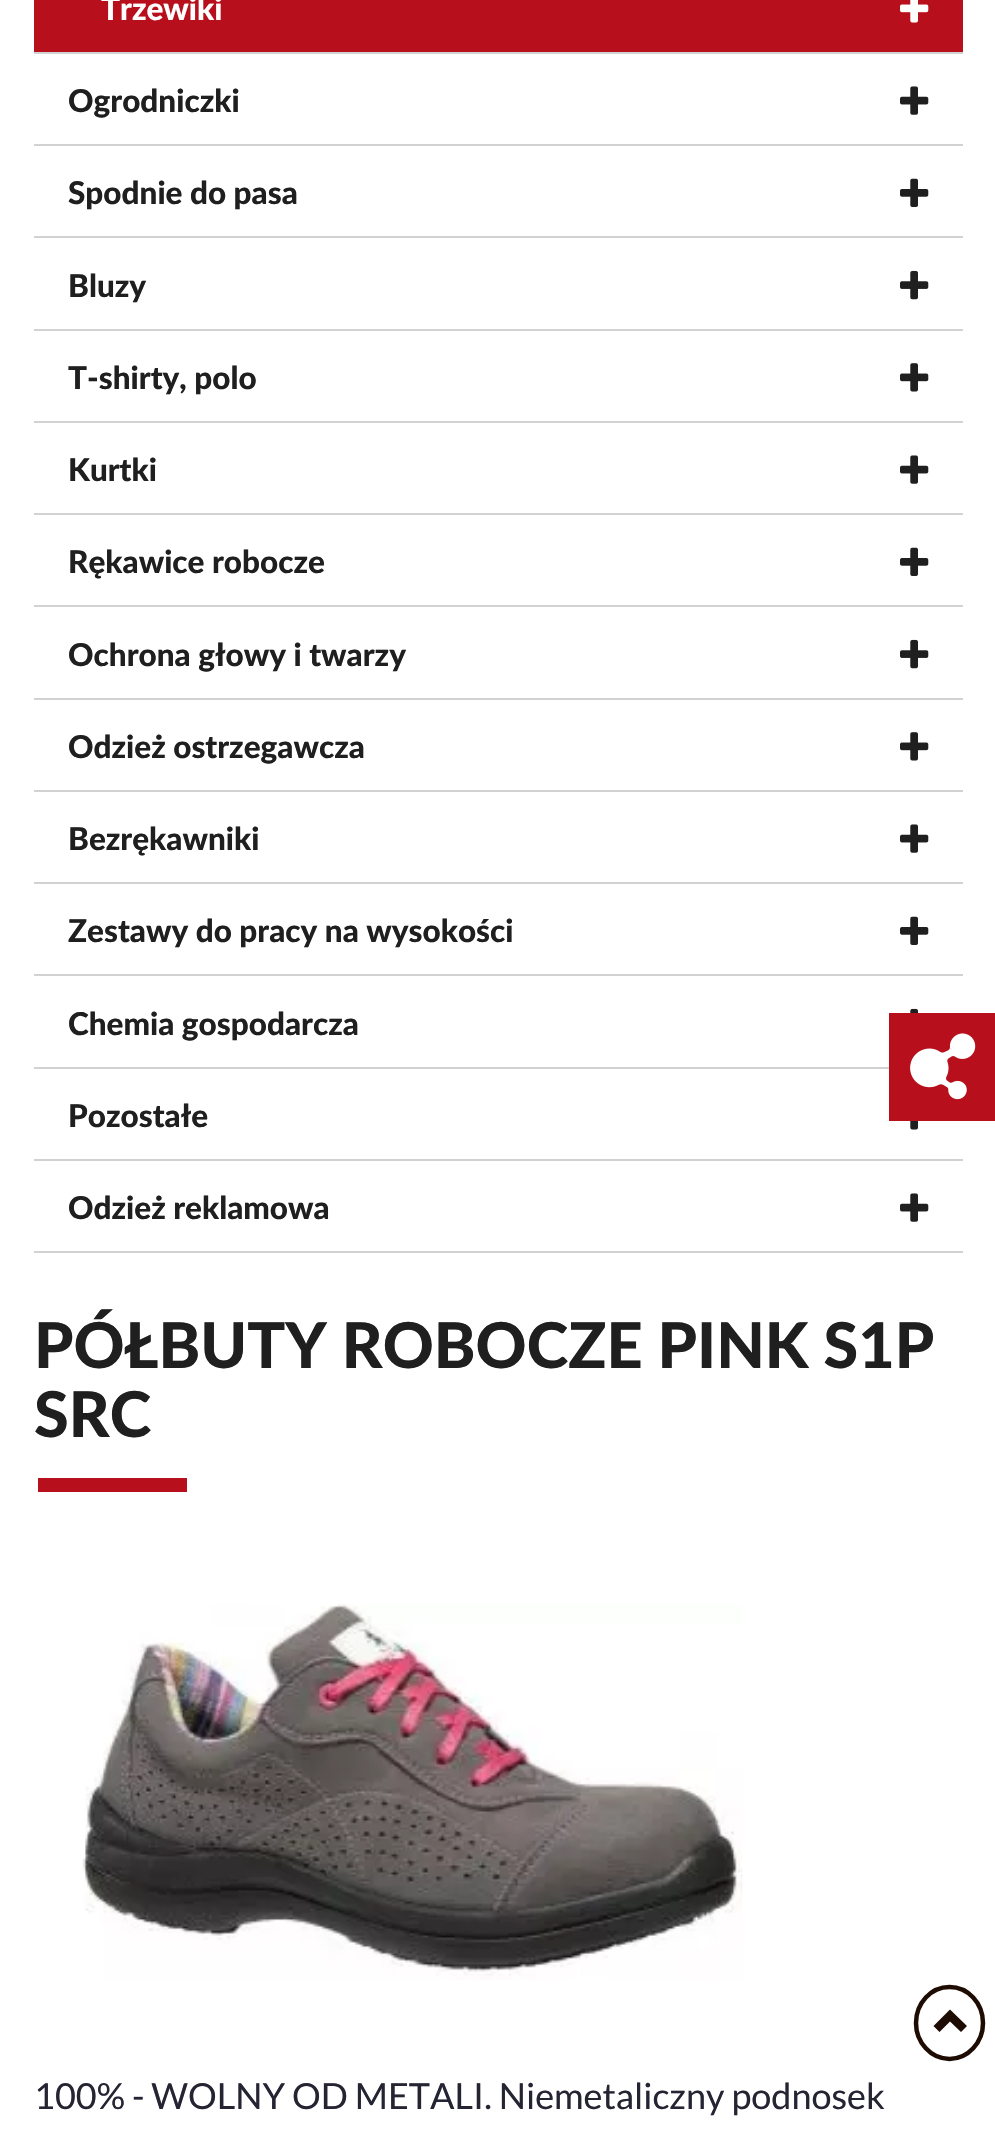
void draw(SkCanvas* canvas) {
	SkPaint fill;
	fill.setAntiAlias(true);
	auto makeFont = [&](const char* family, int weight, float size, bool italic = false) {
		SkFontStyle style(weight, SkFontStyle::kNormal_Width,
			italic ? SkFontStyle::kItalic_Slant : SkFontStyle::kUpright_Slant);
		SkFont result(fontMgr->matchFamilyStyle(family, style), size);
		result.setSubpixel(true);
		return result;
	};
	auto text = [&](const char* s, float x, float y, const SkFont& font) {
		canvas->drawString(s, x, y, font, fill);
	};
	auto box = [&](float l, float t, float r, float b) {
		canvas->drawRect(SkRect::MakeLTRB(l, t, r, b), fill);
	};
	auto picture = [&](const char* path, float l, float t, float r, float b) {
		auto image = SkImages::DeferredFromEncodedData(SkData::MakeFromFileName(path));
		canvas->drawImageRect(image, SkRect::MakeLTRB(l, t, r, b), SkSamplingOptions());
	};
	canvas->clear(0xFFFFFFFF);
	fill.setColor(0xFFB70F1B);
	box(34, 0, 963, 52);
	fill.setColor(0xFFD2D2D2);
	box(34, 52, 963, 54);
	picture("image0.png", 900, 0, 929, 23);
	box(34, 144, 963, 146);
	picture("image1.png", 900, 86, 929, 115);
	box(34, 236, 963, 238);
	picture("image2.png", 900, 178, 929, 207);
	box(34, 329, 963, 331);
	picture("image3.png", 900, 270, 929, 300);
	box(34, 421, 963, 423);
	picture("image4.png", 900, 363, 929, 392);
	box(34, 513, 963, 515);
	picture("image1.png", 900, 455, 929, 484);
	box(34, 605, 963, 607);
	picture("image2.png", 900, 547, 929, 576);
	box(34, 698, 963, 700);
	picture("image3.png", 900, 639, 929, 669);
	box(34, 790, 963, 792);
	picture("image4.png", 900, 732, 929, 761);
	box(34, 882, 963, 884);
	picture("image1.png", 900, 824, 929, 853);
	box(34, 974, 963, 976);
	picture("image2.png", 900, 916, 929, 945);
	picture("image5.png", 910, 1008, 918, 1013);
	box(34, 1067, 889, 1069);
	box(34, 1159, 963, 1161);
	picture("image6.png", 910, 1121, 918, 1130);
	box(34, 1251, 963, 1253);
	picture("image1.png", 900, 1193, 929, 1222);
	fill.setColor(0xFFB70F1B);
	box(38, 1478, 187, 1492);
	picture("image7.png", 82, 1604, 743, 1980);
	box(889, 1013, 995, 1121);
	picture("image8.png", 910, 1033, 976, 1100);
	fill.setStyle(SkPaint::kStroke_Style);
	fill.setStrokeWidth(4.5f);
	fill.setColor(0xFF1E0B02);
	canvas->drawPath(SkPathBuilder().moveTo(949.5f, 1987).cubicTo(968, 1987, 983, 2003, 983, 2023).cubicTo(983, 2042.5f, 968, 2059, 949.5f, 2059).cubicTo(931, 2059, 916, 2042.5f, 916, 2023).cubicTo(916, 2003, 931, 1987, 949.5f, 1987).close().detach(), fill);
	fill.setStyle(SkPaint::kFill_Style);
	canvas->drawPath(SkPathBuilder().moveTo(967, 2026).lineTo(961, 2032).lineTo(950, 2021.5f).lineTo(939.5f, 2032).lineTo(933.5f, 2026).lineTo(950, 2009.5f).close().detach(), fill);
	auto font1 = makeFont("Lato", 900, 31.5f);
	fill.setColor(0xFFFFFFFF);
	text("Trzewiki", 101, 20, font1);
	fill.setColor(0xFF1F1F1F);
	text("Ogrodniczki", 68, 112, font1);
	text("Spodnie do pasa", 68, 204, font1);
	text("Bluzy", 68, 297, font1);
	text("T-shirty, polo", 68, 389, font1);
	text("Kurtki", 68, 481, font1);
	text("Rękawice robocze", 68, 573, font1);
	text("Ochrona głowy i twarzy", 68, 666, font1);
	text("Odzież ostrzegawcza", 68, 758, font1);
	text("Bezrękawniki", 68, 850, font1);
	text("Zestawy do pracy na wysokości", 68, 942, font1);
	text("Chemia gospodarcza", 68, 1035, font1);
	text("Pozostałe", 68, 1127, font1);
	text("Odzież reklamowa", 68, 1219, font1);
	auto font2 = makeFont("Lato", 900, 63);
	text("PÓŁBUTY ROBOCZE PINK S1P", 34, 1368, font2);
	text("SRC", 34, 1437, font2);
	auto font3 = makeFont("Lato", 400, 36);
	fill.setColor(0xFF252433);
	text("100% - WOLNY OD METALI. Niemetaliczny podnosek", 34, 2109, font3);
}
